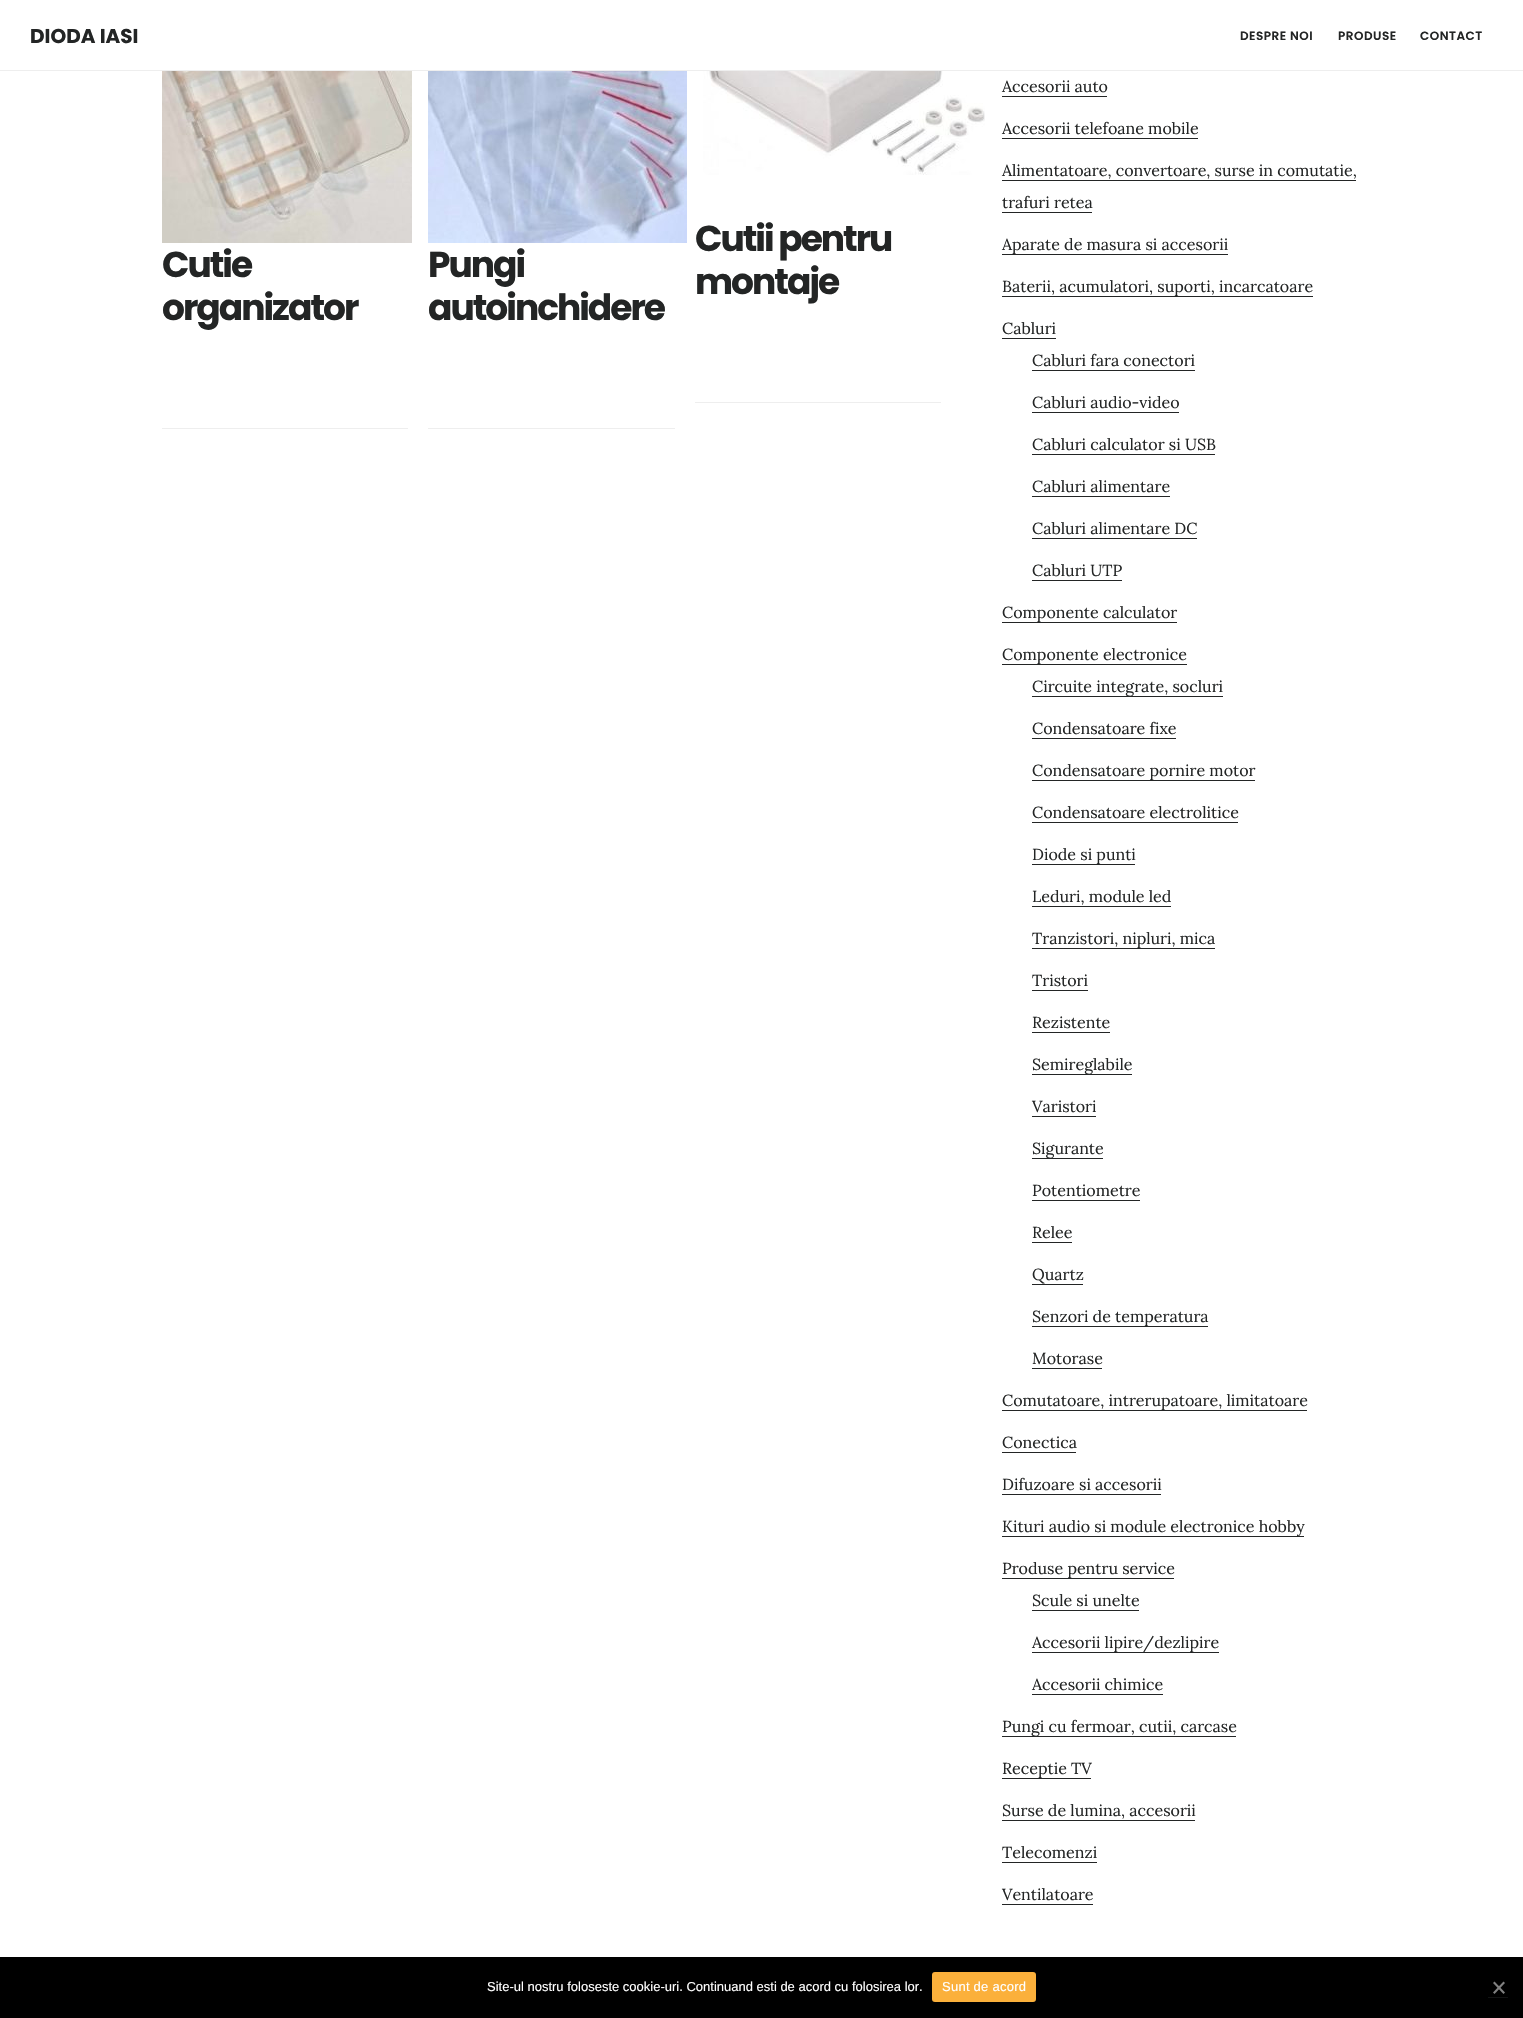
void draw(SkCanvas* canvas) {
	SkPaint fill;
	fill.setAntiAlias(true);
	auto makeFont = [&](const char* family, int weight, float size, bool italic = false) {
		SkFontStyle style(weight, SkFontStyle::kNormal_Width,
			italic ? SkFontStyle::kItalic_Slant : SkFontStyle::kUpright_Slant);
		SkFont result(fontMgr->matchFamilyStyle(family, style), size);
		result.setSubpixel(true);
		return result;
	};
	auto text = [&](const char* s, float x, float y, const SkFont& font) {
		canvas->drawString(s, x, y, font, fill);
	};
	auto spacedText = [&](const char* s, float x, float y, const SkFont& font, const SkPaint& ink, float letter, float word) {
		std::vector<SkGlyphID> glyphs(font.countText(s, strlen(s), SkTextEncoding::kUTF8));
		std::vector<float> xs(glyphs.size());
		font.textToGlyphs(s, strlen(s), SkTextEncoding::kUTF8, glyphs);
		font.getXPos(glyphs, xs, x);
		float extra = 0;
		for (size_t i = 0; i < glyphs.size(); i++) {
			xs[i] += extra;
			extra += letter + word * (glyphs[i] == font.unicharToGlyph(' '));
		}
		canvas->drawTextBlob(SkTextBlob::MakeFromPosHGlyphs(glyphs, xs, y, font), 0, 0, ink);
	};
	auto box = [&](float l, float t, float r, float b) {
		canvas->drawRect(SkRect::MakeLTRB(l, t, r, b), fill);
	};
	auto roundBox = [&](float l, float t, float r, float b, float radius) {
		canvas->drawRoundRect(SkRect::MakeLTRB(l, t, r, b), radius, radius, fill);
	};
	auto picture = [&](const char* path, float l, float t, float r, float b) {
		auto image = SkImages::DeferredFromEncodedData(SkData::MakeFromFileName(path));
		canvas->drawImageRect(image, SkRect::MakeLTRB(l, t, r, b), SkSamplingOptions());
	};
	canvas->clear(0xFFFFFFFF);
	fill.setColor(0xFFEEEEEE);
	box(0, 70, 1523, 71);
	box(162, 428, 408, 429);
	picture("image0.png", 162, 71, 412, 243);
	box(428, 428, 675, 429);
	picture("image1.png", 428, 71, 687, 243);
	box(695, 402, 941, 403);
	picture("image2.png", 703, 71, 985, 175);
	fill.setColor(0xFF232525);
	box(1002, 96, 1107, 97);
	box(1002, 138, 1198, 139);
	box(1002, 180, 1356, 181);
	box(1002, 212, 1092, 213);
	box(1002, 254, 1228, 255);
	box(1002, 296, 1313, 297);
	box(1002, 338, 1056, 339);
	box(1032, 370, 1195, 371);
	box(1032, 412, 1179, 413);
	box(1032, 454, 1215, 455);
	box(1032, 496, 1170, 497);
	box(1032, 538, 1197, 539);
	box(1032, 580, 1122, 581);
	box(1002, 622, 1177, 623);
	box(1002, 664, 1187, 665);
	box(1032, 696, 1223, 697);
	box(1032, 738, 1176, 739);
	box(1032, 780, 1255, 781);
	box(1032, 822, 1238, 823);
	box(1032, 864, 1135, 865);
	box(1032, 906, 1171, 907);
	box(1032, 948, 1215, 949);
	box(1032, 990, 1088, 991);
	box(1032, 1032, 1110, 1033);
	box(1032, 1074, 1132, 1075);
	box(1032, 1116, 1096, 1117);
	box(1032, 1158, 1103, 1159);
	box(1032, 1200, 1140, 1201);
	box(1032, 1242, 1072, 1243);
	box(1032, 1284, 1083, 1285);
	box(1032, 1326, 1208, 1327);
	box(1032, 1368, 1102, 1369);
	box(1002, 1410, 1307, 1411);
	box(1002, 1452, 1076, 1453);
	box(1002, 1494, 1161, 1495);
	box(1002, 1536, 1304, 1537);
	box(1002, 1578, 1174, 1579);
	box(1032, 1610, 1139, 1611);
	box(1032, 1652, 1219, 1653);
	box(1032, 1694, 1163, 1695);
	box(1002, 1736, 1236, 1737);
	box(1002, 1778, 1091, 1779);
	box(1002, 1820, 1195, 1821);
	box(1002, 1862, 1097, 1863);
	box(1002, 1904, 1093, 1905);
	fill.setColor(0xFF000000);
	box(0, 1957, 1523, 2018);
	fill.setColor(0xFFFBB03B);
	roundBox(932, 1972, 1036, 2002, 3);
	fill.setColor(0xFF121313);
	box(1488, 1997, 1508, 1998);
	fill.setColor(0xFF808080);
	canvas->drawPath(SkPathBuilder().moveTo(1503.5f, 1981.5f).lineTo(1505, 1983).lineTo(1494.5f, 1994).lineTo(1493, 1992.5f).close().detach(), fill);
	canvas->drawPath(SkPathBuilder().moveTo(1493, 1983).lineTo(1494.5f, 1981.5f).lineTo(1505, 1992.5f).lineTo(1503.5f, 1994).close().detach(), fill);
	auto font1 = makeFont("Poppins", 700, 20);
	fill.setColor(0xFF232525);
	text("DIODA IASI", 30, 43, font1);
	auto font2 = makeFont("Poppins", 600, 12);
	spacedText("DESPRE NOI", 1240, 40, font2, fill, 0.5f, 0);
	spacedText("PRODUSE", 1338, 40, font2, fill, 0.5f, 0);
	spacedText("CONTACT", 1420, 40, font2, fill, 0.5f, 0);
	auto font3 = makeFont("Poppins", 700, 36);
	spacedText("Cutie", 162, 277, font3, fill, -2, 0);
	spacedText("organizator", 162, 320, font3, fill, -2, 0);
	spacedText("Pungi", 428, 277, font3, fill, -2, 0);
	spacedText("autoinchidere", 428, 320, font3, fill, -2, 0);
	spacedText("Cutii pentru", 695, 251, font3, fill, -2, 0);
	spacedText("montaje", 695, 294, font3, fill, -2, 0);
	auto font4 = makeFont("Lora", 400, 16);
	text("Accesorii auto", 1002, 92, font4);
	text("Accesorii telefoane mobile", 1002, 134, font4);
	text("Alimentatoare, convertoare, surse in comutatie,", 1002, 176, font4);
	text("trafuri retea", 1002, 208, font4);
	text("Aparate de masura si accesorii", 1002, 250, font4);
	text("Baterii, acumulatori, suporti, incarcatoare", 1002, 292, font4);
	text("Cabluri", 1002, 334, font4);
	text("Cabluri fara conectori", 1032, 366, font4);
	text("Cabluri audio-video", 1032, 408, font4);
	text("Cabluri calculator si USB", 1032, 450, font4);
	text("Cabluri alimentare", 1032, 492, font4);
	text("Cabluri alimentare DC", 1032, 534, font4);
	text("Cabluri UTP", 1032, 576, font4);
	text("Componente calculator", 1002, 618, font4);
	text("Componente electronice", 1002, 660, font4);
	text("Circuite integrate, socluri", 1032, 692, font4);
	text("Condensatoare fixe", 1032, 734, font4);
	text("Condensatoare pornire motor", 1032, 776, font4);
	text("Condensatoare electrolitice", 1032, 818, font4);
	text("Diode si punti", 1032, 860, font4);
	text("Leduri, module led", 1032, 902, font4);
	text("Tranzistori, nipluri, mica", 1032, 944, font4);
	text("Tristori", 1032, 986, font4);
	text("Rezistente", 1032, 1028, font4);
	text("Semireglabile", 1032, 1070, font4);
	text("Varistori", 1032, 1112, font4);
	text("Sigurante", 1032, 1154, font4);
	text("Potentiometre", 1032, 1196, font4);
	text("Relee", 1032, 1238, font4);
	text("Quartz", 1032, 1280, font4);
	text("Senzori de temperatura", 1032, 1322, font4);
	text("Motorase", 1032, 1364, font4);
	text("Comutatoare, intrerupatoare, limitatoare", 1002, 1406, font4);
	text("Conectica", 1002, 1448, font4);
	text("Difuzoare si accesorii", 1002, 1490, font4);
	text("Kituri audio si module electronice hobby", 1002, 1532, font4);
	text("Produse pentru service", 1002, 1574, font4);
	text("Scule si unelte", 1032, 1606, font4);
	text("Accesorii lipire/dezlipire", 1032, 1648, font4);
	text("Accesorii chimice", 1032, 1690, font4);
	text("Pungi cu fermoar, cutii, carcase", 1002, 1732, font4);
	text("Receptie TV", 1002, 1774, font4);
	text("Surse de lumina, accesorii", 1002, 1816, font4);
	text("Telecomenzi", 1002, 1858, font4);
	text("Ventilatoare", 1002, 1900, font4);
	auto font5 = makeFont("Liberation Sans", 400, 13);
	fill.setColor(0xFFFFFFFF);
	text("Site-ul nostru foloseste cookie-uri. Continuand esti de acord cu folosirea lor.", 487, 1991, font5);
	spacedText("Sunt de acord", 942, 1991, font5, fill, 0.25f, 0);
}
